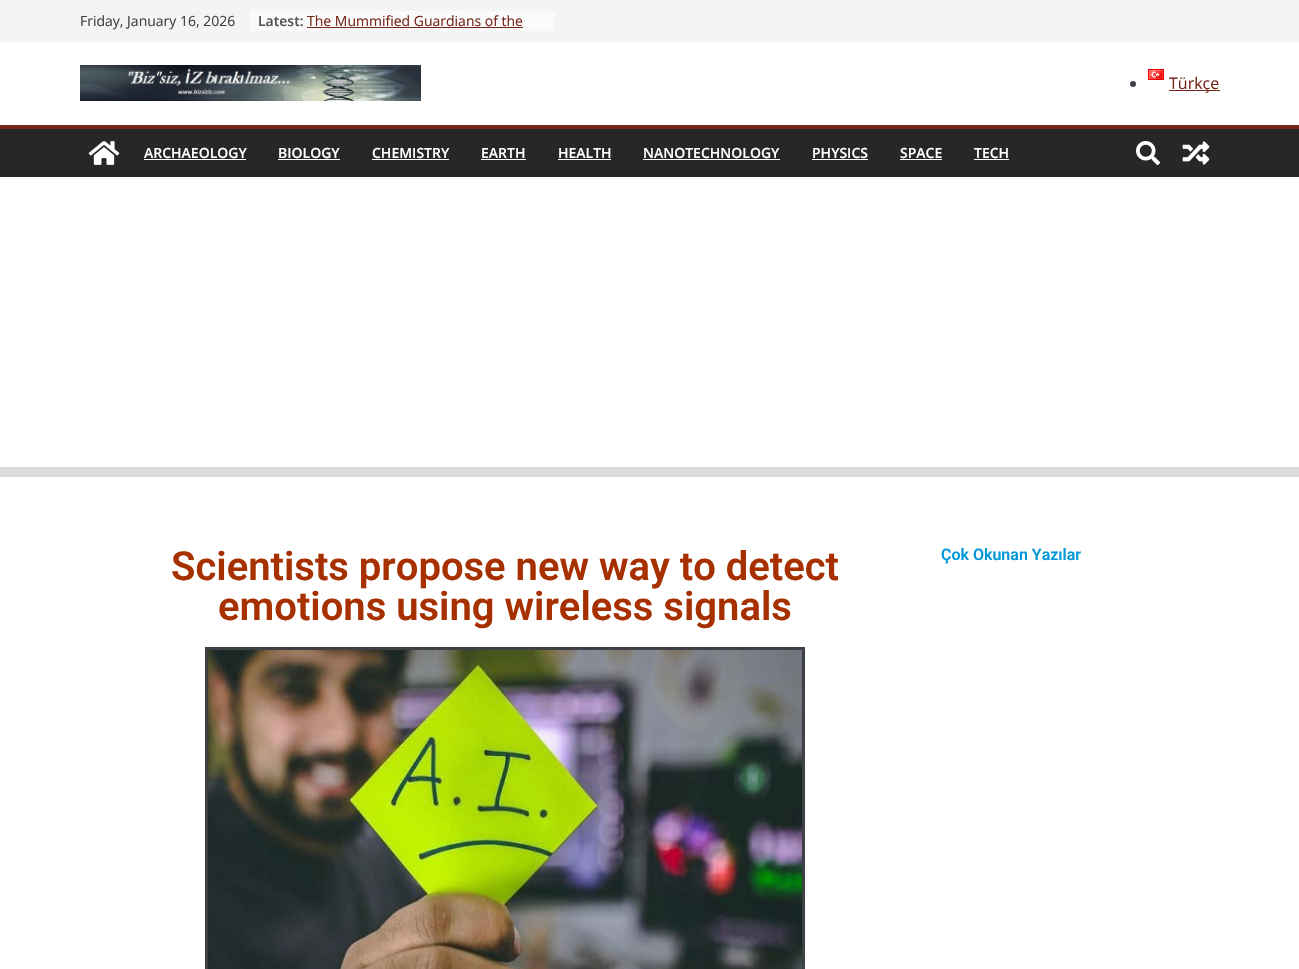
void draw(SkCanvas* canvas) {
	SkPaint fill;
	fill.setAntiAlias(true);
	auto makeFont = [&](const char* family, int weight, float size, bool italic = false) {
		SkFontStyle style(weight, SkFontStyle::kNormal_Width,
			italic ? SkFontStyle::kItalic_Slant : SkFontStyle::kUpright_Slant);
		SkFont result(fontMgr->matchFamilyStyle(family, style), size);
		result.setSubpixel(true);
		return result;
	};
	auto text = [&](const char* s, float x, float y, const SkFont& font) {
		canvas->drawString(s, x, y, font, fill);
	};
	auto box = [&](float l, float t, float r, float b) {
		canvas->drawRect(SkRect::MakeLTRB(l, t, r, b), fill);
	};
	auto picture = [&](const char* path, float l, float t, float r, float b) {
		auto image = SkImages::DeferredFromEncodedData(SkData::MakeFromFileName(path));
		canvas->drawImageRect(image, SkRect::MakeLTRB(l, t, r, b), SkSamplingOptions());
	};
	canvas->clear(0xFFDBDBDB);
	fill.setColor(0xFFFFFFFF);
	box(0, 41, 1299, 467);
	fill.setColor(0x1A000000);
	fill.setMaskFilter(SkMaskFilter::MakeBlur(kNormal_SkBlurStyle, 1));
	canvas->drawRect(SkRect::MakeLTRB(0, 0, 1299, 41), fill);
	fill.setMaskFilter(nullptr);
	fill.setColor(0xFFF4F4F5);
	box(0, 0, 1299, 41);
	fill.setColor(0xFFFAFAFA);
	box(250, 11, 555, 31);
	fill.setColor(0xFF752619);
	box(307, 27, 523, 28);
	picture("image0.png", 80, 65, 421, 101);
	picture("image1.png", 1148, 69, 1164, 80);
	fill.setColor(0xFF3F3F46);
	canvas->drawCircle(1133, 84, 3, fill);
	fill.setColor(0xFF752619);
	box(1169, 90, 1220, 91);
	fill.setColor(0xFF27272A);
	box(0, 129, 1299, 177);
	fill.setColor(0xFF752619);
	box(0, 125, 1299, 129);
	picture("image2.png", 88, 141, 120, 165);
	fill.setColor(0xFFFFFFFF);
	box(144, 159, 246, 160);
	box(278, 159, 340, 160);
	box(372, 159, 449, 160);
	box(481, 159, 526, 160);
	box(558, 159, 611, 160);
	box(643, 159, 780, 160);
	box(812, 159, 868, 160);
	box(900, 159, 942, 160);
	box(974, 159, 1009, 160);
	picture("image3.png", 1136, 141, 1160, 165);
	picture("image4.png", 1182, 141, 1210, 165);
	box(0, 477, 1299, 969);
	fill.setStyle(SkPaint::kStroke_Style);
	fill.setStrokeWidth(3);
	fill.setColor(0xFF3F3F46);
	canvas->drawRect(SkRect::MakeLTRB(206.5f, 648.5f, 803.5f, 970.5f), fill);
	picture("image5.png", 208, 650, 802, 969);
	auto font1 = makeFont("Open Sans", 400, 14);
	fill.setStyle(SkPaint::kFill_Style);
	text("Friday, January 16, 2026", 80, 26, font1);
	auto font2 = makeFont("Open Sans", 600, 14);
	fill.setColor(0xFF555555);
	text("Latest:", 258, 26, font2);
	fill.setColor(0xFF752619);
	text("The Mummified Guardians of the", 307, 26, font1);
	auto font3 = makeFont("Open Sans", 400, 16);
	text("Türkçe", 1169, 89, font3);
	fill.setColor(0xFFFFFFFF);
	text("ARCHAEOLOGY", 144, 158, font2);
	text("BIOLOGY", 278, 158, font2);
	text("CHEMISTRY", 372, 158, font2);
	text("EARTH", 481, 158, font2);
	text("HEALTH", 558, 158, font2);
	text("NANOTECHNOLOGY", 643, 158, font2);
	text("PHYSICS", 812, 158, font2);
	text("SPACE", 900, 158, font2);
	text("TECH", 974, 158, font2);
	auto font4 = makeFont("Roboto", 600, 40);
	fill.setColor(0xFFA73000);
	text("Scientists propose new way to detect", 171, 580, font4);
	text("emotions using wireless signals", 218, 620, font4);
	auto font5 = makeFont("Roboto", 600, 16);
	fill.setColor(0xFF0098D8);
	text("Çok Okunan Yazılar", 941, 560, font5);
}
